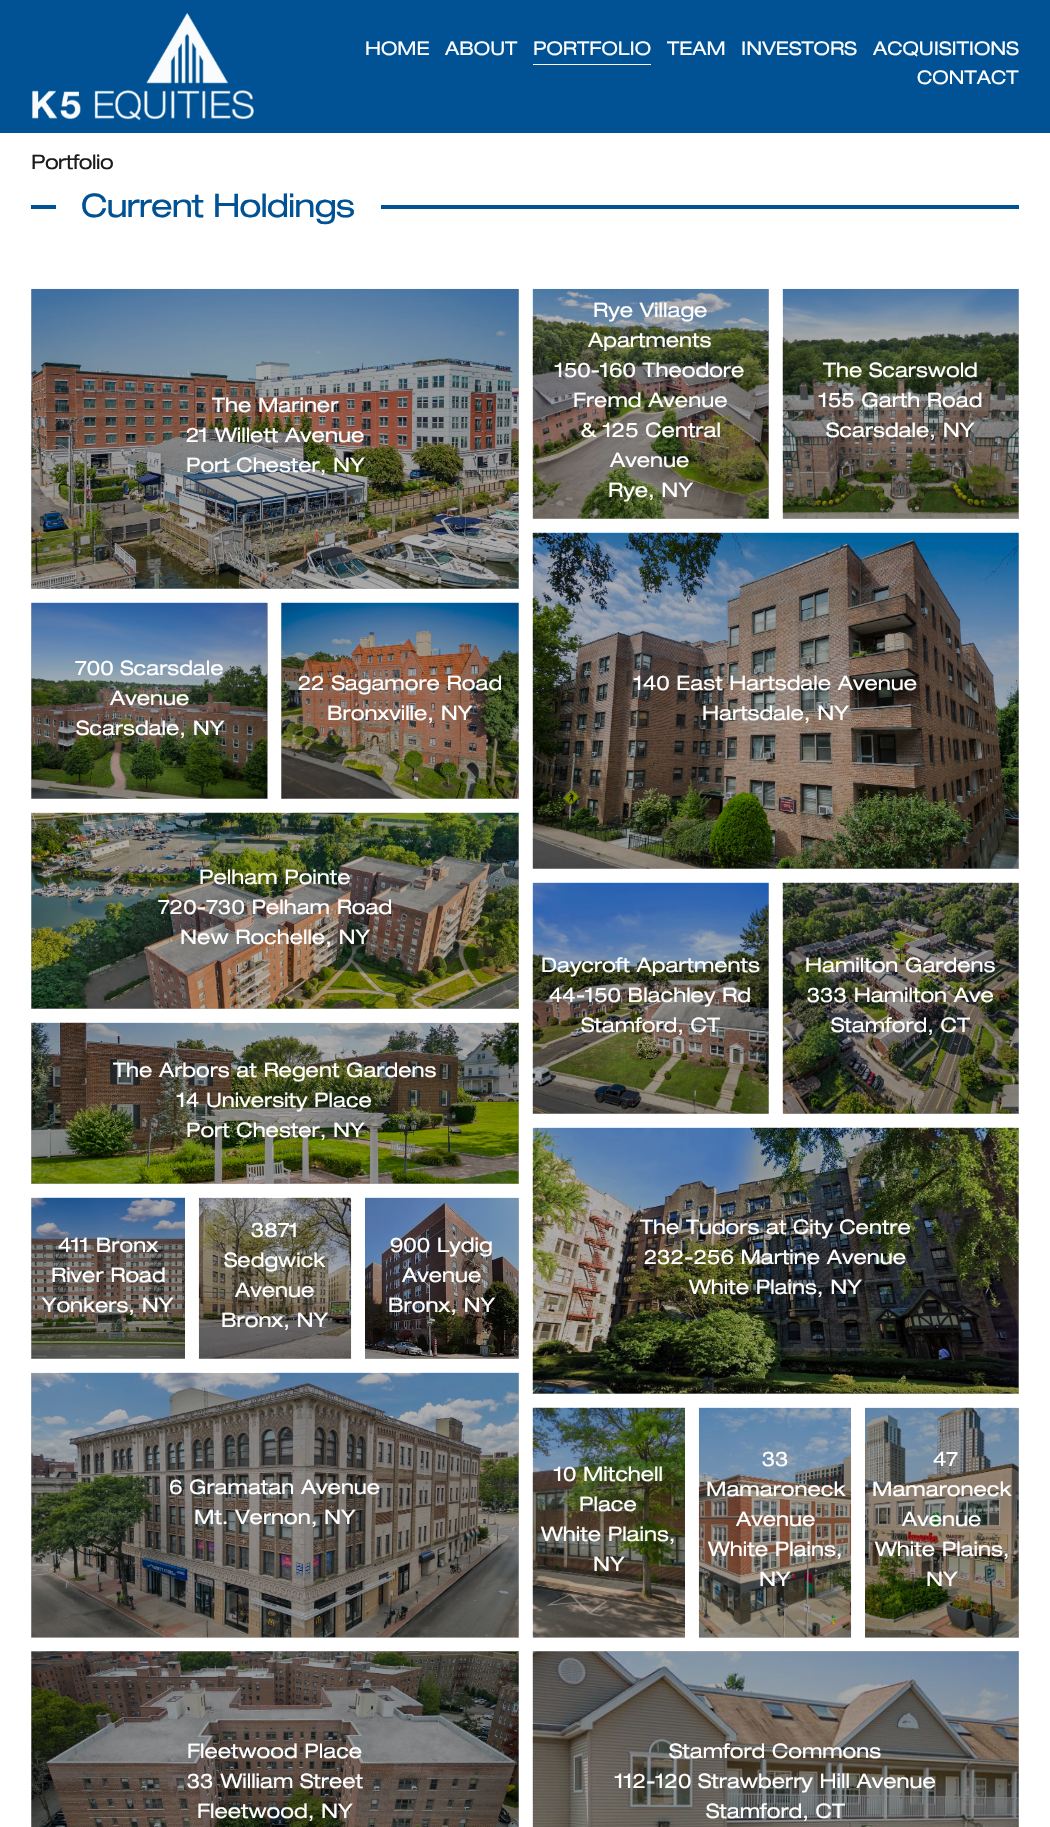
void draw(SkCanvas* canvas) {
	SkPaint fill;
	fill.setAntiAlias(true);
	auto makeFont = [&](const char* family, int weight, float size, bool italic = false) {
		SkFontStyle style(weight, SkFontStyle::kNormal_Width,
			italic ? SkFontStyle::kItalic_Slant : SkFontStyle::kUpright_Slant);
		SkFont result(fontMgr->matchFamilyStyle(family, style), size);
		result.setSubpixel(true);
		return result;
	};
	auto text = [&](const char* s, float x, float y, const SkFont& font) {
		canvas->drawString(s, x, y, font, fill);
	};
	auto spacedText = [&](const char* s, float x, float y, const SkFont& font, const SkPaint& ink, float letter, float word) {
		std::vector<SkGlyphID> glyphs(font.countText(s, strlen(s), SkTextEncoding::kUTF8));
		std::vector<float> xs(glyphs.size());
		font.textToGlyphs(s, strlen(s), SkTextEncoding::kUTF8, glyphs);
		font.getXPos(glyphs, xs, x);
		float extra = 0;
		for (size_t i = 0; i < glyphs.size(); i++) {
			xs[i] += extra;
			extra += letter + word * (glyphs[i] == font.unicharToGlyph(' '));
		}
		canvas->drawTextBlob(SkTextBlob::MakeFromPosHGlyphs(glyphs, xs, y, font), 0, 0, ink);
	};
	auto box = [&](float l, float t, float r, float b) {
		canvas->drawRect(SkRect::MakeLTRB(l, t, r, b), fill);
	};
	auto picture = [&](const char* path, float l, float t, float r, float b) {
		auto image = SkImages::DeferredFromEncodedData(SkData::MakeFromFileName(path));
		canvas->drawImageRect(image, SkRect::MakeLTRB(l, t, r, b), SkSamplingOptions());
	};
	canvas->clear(0xFFFFFFFF);
	fill.setColor(0xFF005294);
	box(0, 0, 1050, 133);
	picture("image0.png", 32, 13, 254, 121);
	fill.setColor(0xFFFFFFFF);
	box(533, 64, 651, 65);
	fill.setColor(0xFF005294);
	box(31, 205, 1019, 209);
	fill.setColor(0xFFFFFFFF);
	box(56, 205, 381, 209);
	fill.setColor(0xFFB3B3B3);
	box(31, 1023, 519, 1184);
	box(31, 603, 268, 799);
	box(281, 603, 519, 799);
	box(199, 1358, 351, 1359);
	box(365, 1198, 519, 1359);
	box(533, 1637, 685, 1638);
	box(699, 1637, 851, 1638);
	box(783, 289, 1019, 519);
	box(31, 1198, 185, 1359);
	fill.setColor(0xFFABABAB);
	box(533, 1651, 1019, 1827);
	fill.setColor(0xFFB3B3B3);
	box(533, 1128, 1019, 1394);
	fill.setColor(0xFFABABAB);
	box(31, 1651, 519, 1827);
	fill.setColor(0xFFB3B3B3);
	box(31, 1373, 519, 1638);
	fill.setColor(0xFFABABAB);
	box(865, 1408, 1019, 1638);
	fill.setColor(0xFFB3B3B3);
	box(31, 813, 519, 1009);
	box(533, 289, 769, 519);
	box(533, 883, 769, 1114);
	box(783, 883, 1019, 1114);
	box(533, 533, 1019, 869);
	box(31, 289, 519, 589);
	picture("image1.png", 31, 288, 519, 589);
	picture("image2.png", 532, 288, 769, 519);
	picture("image3.png", 782, 288, 1019, 519);
	picture("image4.png", 31, 602, 268, 799);
	picture("image5.png", 281, 602, 519, 799);
	picture("image6.png", 532, 532, 1019, 869);
	picture("image7.png", 31, 812, 519, 1009);
	picture("image8.png", 532, 882, 769, 1114);
	picture("image9.png", 782, 882, 1019, 1114);
	picture("image10.png", 31, 1022, 519, 1184);
	picture("image11.png", 31, 1197, 185, 1359);
	picture("image12.png", 198, 1197, 352, 1359);
	picture("image13.png", 365, 1197, 519, 1359);
	picture("image14.png", 532, 1127, 1019, 1394);
	picture("image15.png", 31, 1372, 519, 1638);
	picture("image16.png", 532, 1407, 685, 1638);
	picture("image17.png", 698, 1407, 852, 1638);
	picture("image18.png", 865, 1407, 1019, 1638);
	picture("image19.png", 31, 1651, 519, 1827);
	picture("image20.png", 532, 1651, 1019, 1827);
	auto font1 = makeFont("Helvetica Neue", 400, 18.75f);
	fill.setColor(0xFFFFFFFF);
	text("HOME", 365, 55, font1);
	text("ABOUT", 445, 55, font1);
	text("PORTFOLIO", 533, 55, font1);
	text("TEAM", 667, 55, font1);
	text("INVESTORS", 741, 55, font1);
	text("ACQUISITIONS", 873, 55, font1);
	text("CONTACT", 917, 84, font1);
	auto font2 = makeFont("Helvetica Neue", 400, 20);
	fill.setColor(0xFF1C1C1C);
	spacedText("Portfolio", 31, 169, font2, fill, -0.5f, 0);
	auto font3 = makeFont("Helvetica Neue", 400, 32.5f);
	fill.setColor(0xFF005294);
	spacedText("Current Holdings", 81, 217, font3, fill, -1, 0);
	fill.setColor(0xFFFFFFFF);
	text("The Mariner", 212, 412, font2);
	text("21 Willett Avenue", 186, 442, font2);
	text("Port Chester, NY", 186, 472, font2);
	text("Rye Village", 593, 317, font2);
	text("Apartments", 588, 347, font2);
	text("150-160 Theodore", 555, 377, font2);
	text("Fremd Avenue", 573, 407, font2);
	text("& 125 Central", 580, 437, font2);
	text("Avenue", 610, 467, font2);
	text("Rye, NY", 608, 497, font2);
	text("The Scarswold", 823, 377, font2);
	text("155 Garth Road", 819, 407, font2);
	text("Scarsdale, NY", 826, 437, font2);
	text("700 Scarsdale", 75, 675, font2);
	text("Avenue", 110, 705, font2);
	text("Scarsdale, NY", 76, 735, font2);
	text("22 Sagamore Road", 298, 690, font2);
	text("Bronxville, NY", 327, 720, font2);
	text("140 East Hartsdale Avenue", 634, 690, font2);
	text("Hartsdale, NY", 702, 720, font2);
	text("Pelham Pointe", 199, 884, font2);
	text("720-730 Pelham Road", 158, 914, font2);
	text("New Rochelle, NY", 180, 944, font2);
	text("Daycroft Apartments", 541, 972, font2);
	text("44-150 Blachley Rd", 549, 1002, font2);
	text("Stamford, CT", 581, 1032, font2);
	text("Hamilton Gardens", 805, 972, font2);
	text("333 Hamilton Ave", 807, 1002, font2);
	text("Stamford, CT", 831, 1032, font2);
	text("The Arbors at Regent Gardens", 113, 1077, font2);
	text("14 University Place", 177, 1107, font2);
	text("Port Chester, NY", 186, 1137, font2);
	text("411 Bronx", 58, 1252, font2);
	text("River Road", 51, 1282, font2);
	text("Yonkers, NY", 42, 1312, font2);
	text("3871", 251, 1237, font2);
	text("Sedgwick", 224, 1267, font2);
	text("Avenue", 235, 1297, font2);
	text("Bronx, NY", 221, 1327, font2);
	text("900 Lydig", 390, 1252, font2);
	text("Avenue", 402, 1282, font2);
	text("Bronx, NY", 388, 1312, font2);
	text("The Tudors at City Centre", 640, 1234, font2);
	text("232-256 Martine Avenue", 644, 1264, font2);
	text("White Plains, NY", 689, 1294, font2);
	text("6 Gramatan Avenue", 169, 1494, font2);
	text("Mt. Vernon, NY", 194, 1524, font2);
	text("10 Mitchell", 554, 1481, font2);
	text("Place", 579, 1511, font2);
	text("White Plains,", 541, 1541, font2);
	text("NY", 593, 1571, font2);
	text("33", 762, 1466, font2);
	text("Mamaroneck", 706, 1496, font2);
	text("Avenue", 736, 1526, font2);
	text("White Plains,", 708, 1556, font2);
	text("NY", 759, 1586, font2);
	text("47", 933, 1466, font2);
	text("Mamaroneck", 872, 1496, font2);
	text("Avenue", 902, 1526, font2);
	text("White Plains,", 875, 1556, font2);
	text("NY", 926, 1586, font2);
	text("Fleetwood Place", 187, 1758, font2);
	text("33 William Street", 187, 1788, font2);
	text("Fleetwood, NY", 197, 1818, font2);
	text("Stamford Commons", 669, 1758, font2);
	text("112-120 Strawberry Hill Avenue", 615, 1788, font2);
	text("Stamford, CT", 706, 1818, font2);
}
